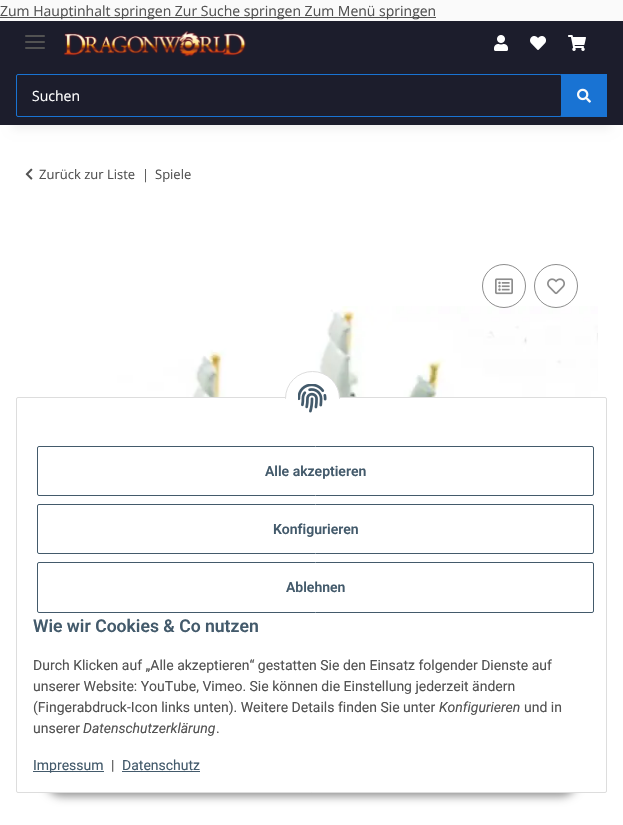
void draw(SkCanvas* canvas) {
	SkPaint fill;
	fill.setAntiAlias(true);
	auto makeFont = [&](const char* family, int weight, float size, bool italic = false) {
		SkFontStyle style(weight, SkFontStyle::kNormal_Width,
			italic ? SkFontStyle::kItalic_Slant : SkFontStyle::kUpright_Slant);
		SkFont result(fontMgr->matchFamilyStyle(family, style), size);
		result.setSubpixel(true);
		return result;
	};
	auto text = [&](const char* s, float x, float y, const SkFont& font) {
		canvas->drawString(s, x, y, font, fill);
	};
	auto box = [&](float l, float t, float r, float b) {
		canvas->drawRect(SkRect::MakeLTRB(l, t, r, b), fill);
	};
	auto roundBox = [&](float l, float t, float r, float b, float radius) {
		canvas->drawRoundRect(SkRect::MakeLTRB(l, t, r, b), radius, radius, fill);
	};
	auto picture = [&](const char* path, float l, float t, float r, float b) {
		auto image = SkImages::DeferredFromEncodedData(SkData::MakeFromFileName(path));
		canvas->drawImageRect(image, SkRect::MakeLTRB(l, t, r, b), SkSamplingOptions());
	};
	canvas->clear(0xFFFAFAFA);
	fill.setColor(0xFF525252);
	box(0, 17, 436, 18);
	fill.setColor(0xFFFFFFFF);
	box(0, 125, 623, 825);
	fill.setColor(0x0F000000);
	fill.setMaskFilter(SkMaskFilter::MakeBlur(kNormal_SkBlurStyle, 4.5f));
	canvas->drawRect(SkRect::MakeLTRB(12, 49, 611, 129), fill);
	fill.setMaskFilter(nullptr);
	fill.setColor(0xFF1C1D2C);
	box(0, 21, 623, 125);
	fill.setColor(0xFF525252);
	roundBox(25, 41, 45, 43, 1);
	roundBox(25, 35, 45, 37, 1);
	roundBox(25, 47, 45, 49, 1);
	picture("image0.png", 63, 31, 246, 57);
	picture("image1.png", 494, 35, 508, 51);
	picture("image2.png", 530, 36, 546, 50);
	picture("image3.png", 568, 35, 586, 51);
	fill.setStyle(SkPaint::kStroke_Style);
	fill.setStrokeWidth(1);
	fill.setColor(0xFF1973D3);
	canvas->drawRoundRect(SkRect::MakeLTRB(16.5f, 74.5f, 561.5f, 116.5f), 1.5f, 1.5f, fill);
	fill.setStyle(SkPaint::kFill_Style);
	box(561, 74, 607, 117);
	picture("image4.png", 577, 88, 591, 103);
	picture("image5.png", 25, 168, 33, 180);
	picture("image8.png", 44, 306, 598, 397);
	fill.setColor(0xCCFFFFFF);
	canvas->drawCircle(504, 286, 21.5f, fill);
	fill.setStyle(SkPaint::kStroke_Style);
	fill.setColor(0xFF8D8D8D);
	canvas->drawCircle(504, 286, 21.5f, fill);
	picture("image6.png", 495, 278, 513, 295);
	fill.setStyle(SkPaint::kFill_Style);
	fill.setColor(0xCCFFFFFF);
	canvas->drawCircle(556, 286, 21.5f, fill);
	fill.setStyle(SkPaint::kStroke_Style);
	fill.setColor(0xFF8D8D8D);
	canvas->drawCircle(556, 286, 21.5f, fill);
	picture("image7.png", 547, 278, 565, 295);
	fill.setStyle(SkPaint::kFill_Style);
	fill.setColor(0x73000000);
	fill.setMaskFilter(SkMaskFilter::MakeBlur(kNormal_SkBlurStyle, 5));
	canvas->drawRoundRect(SkRect::MakeLTRB(46, 764, 577, 796), 16, 16, fill);
	fill.setMaskFilter(nullptr);
	fill.setColor(0xFFFFFFFF);
	canvas->drawRoundRect(SkRect::MakeLTRB(16.5f, 397.5f, 606.5f, 792.5f), 1.5f, 1.5f, fill);
	fill.setStyle(SkPaint::kStroke_Style);
	fill.setColor(0xFFDDDDDD);
	canvas->drawRoundRect(SkRect::MakeLTRB(16.5f, 397.5f, 606.5f, 792.5f), 1.5f, 1.5f, fill);
	fill.setStyle(SkPaint::kFill_Style);
	fill.setColor(0xFFFFFFFF);
	canvas->drawCircle(312.5f, 398.5f, 27, fill);
	fill.setStyle(SkPaint::kStroke_Style);
	fill.setColor(0xFFDDDDDD);
	canvas->drawCircle(312.5f, 398.5f, 27, fill);
	fill.setStyle(SkPaint::kFill_Style);
	fill.setColor(0xFFFFFFFF);
	box(285, 399, 340, 426);
	picture("image9.png", 298, 384, 327, 413);
	fill.setStyle(SkPaint::kStroke_Style);
	fill.setColor(0xFF435A6B);
	canvas->drawRoundRect(SkRect::MakeLTRB(37.5f, 446.5f, 593.5f, 495.5f), 1.5f, 1.5f, fill);
	canvas->drawRoundRect(SkRect::MakeLTRB(37.5f, 504.5f, 593.5f, 553.5f), 1.5f, 1.5f, fill);
	canvas->drawRoundRect(SkRect::MakeLTRB(37.5f, 562.5f, 593.5f, 612.5f), 1.5f, 1.5f, fill);
	fill.setStyle(SkPaint::kFill_Style);
	box(33, 771, 104, 772);
	box(122, 771, 200, 772);
	auto font1 = makeFont("Open Sans", 400, 14);
	fill.setColor(0xFF525252);
	text("Zum Hauptinhalt springen Zur Suche springen Zum Menü springen", 0, 16, font1);
	fill.setColor(0xFFFFFFFF);
	text("Suchen", 32, 101, font1);
	auto font2 = makeFont("Open Sans", 400, 13);
	fill.setColor(0xFF525252);
	text("Zurück zur Liste", 39, 179, font2);
	text("|", 142, 179, font2);
	text("Spiele", 155, 179, font2);
	auto font3 = makeFont("Roboto", 600, 14);
	fill.setColor(0xFF435A6B);
	text("Alle akzeptieren", 265, 476, font3);
	text("Konfigurieren", 273, 534, font3);
	text("Ablehnen", 286, 592, font3);
	auto font4 = makeFont("Roboto", 600, 17.6f);
	text("Wie wir Cookies & Co nutzen", 33, 632, font4);
	auto font5 = makeFont("Roboto", 400, 14);
	fill.setColor(0xFF525252);
	text("Durch Klicken auf „Alle akzeptieren“ gestatten Sie den Einsatz folgender Dienste auf", 33, 670, font5);
	text("unserer Website: YouTube, Vimeo. Sie können die Einstellung jederzeit ändern", 33, 691, font5);
	text("(Fingerabdruck-Icon links unten). Weitere Details finden Sie unter", 33, 712, font5);
	auto font6 = makeFont("Roboto", 400, 14, true);
	text("Konfigurieren", 439, 712, font6);
	text("und in", 524, 712, font5);
	text("unserer", 33, 733, font5);
	text("Datenschutzerklärung", 83, 733, font6);
	text(".", 216, 733, font5);
	fill.setColor(0xFF435A6B);
	text("Impressum", 33, 770, font5);
	fill.setColor(0xFF525252);
	text("|", 111, 770, font5);
	fill.setColor(0xFF435A6B);
	text("Datenschutz", 122, 770, font5);
}
